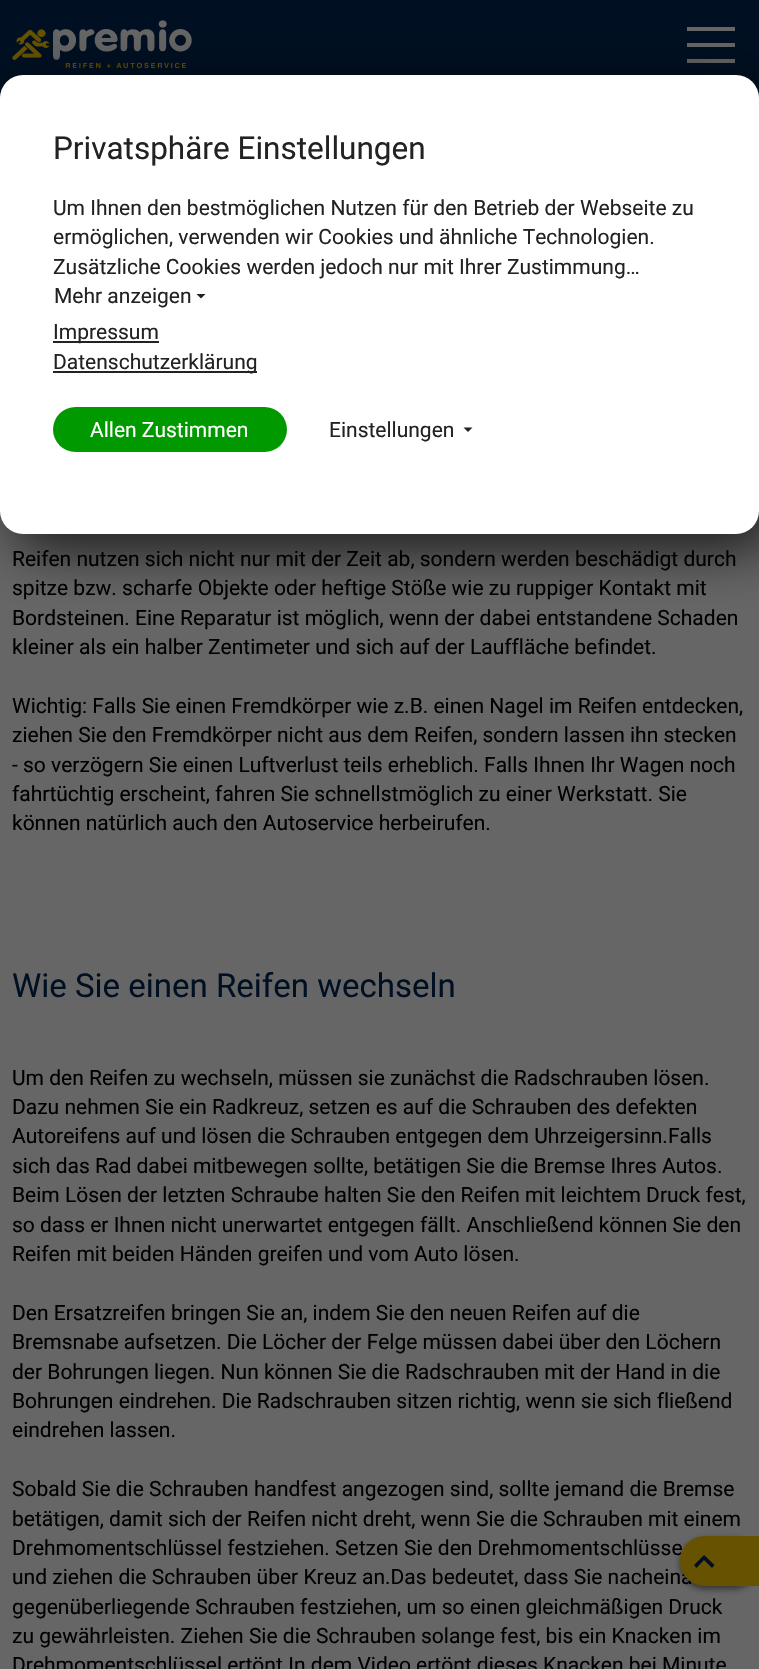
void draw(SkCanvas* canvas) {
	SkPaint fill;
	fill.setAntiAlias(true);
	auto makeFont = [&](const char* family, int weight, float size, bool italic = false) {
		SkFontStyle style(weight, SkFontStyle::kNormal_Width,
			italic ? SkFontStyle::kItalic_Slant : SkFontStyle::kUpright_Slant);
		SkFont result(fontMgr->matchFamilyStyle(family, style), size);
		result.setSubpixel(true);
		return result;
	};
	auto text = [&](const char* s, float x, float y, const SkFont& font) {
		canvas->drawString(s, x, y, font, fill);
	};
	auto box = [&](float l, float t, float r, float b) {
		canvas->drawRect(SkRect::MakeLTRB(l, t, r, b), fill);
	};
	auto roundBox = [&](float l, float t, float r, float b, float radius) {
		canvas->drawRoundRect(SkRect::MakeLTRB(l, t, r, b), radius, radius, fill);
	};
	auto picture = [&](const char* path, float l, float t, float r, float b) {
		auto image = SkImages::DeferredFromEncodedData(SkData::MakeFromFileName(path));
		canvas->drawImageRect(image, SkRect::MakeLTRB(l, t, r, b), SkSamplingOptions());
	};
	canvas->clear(0xFF666666);
	fill.setColor(0xFF001022);
	box(0, 0, 759, 96);
	picture("image0.png", 12, 20, 192, 69);
	fill.setColor(0xFF666666);
	canvas->drawPath(SkPathBuilder(SkPathFillType::kEvenOdd).moveTo(735, 59).lineTo(735, 63).lineTo(687, 63).lineTo(687, 59).close().moveTo(735, 43).lineTo(735, 47).lineTo(687, 47).lineTo(687, 43).close().moveTo(735, 27).lineTo(735, 31).lineTo(687, 31).lineTo(687, 27).close().detach(), fill);
	fill.setColor(0xBF000000);
	fill.setMaskFilter(SkMaskFilter::MakeBlur(kNormal_SkBlurStyle, 28));
	canvas->drawRoundRect(SkRect::MakeLTRB(15, 90, 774, 549), 23, 23, fill);
	fill.setMaskFilter(nullptr);
	fill.setColor(0xFFFFFFFF);
	roundBox(0, 75, 759, 534, 23);
	fill.setColor(0xFF222222);
	canvas->drawPath(SkPathBuilder().moveTo(196.5f, 294).lineTo(205.5f, 294).lineTo(201, 298.5f).close().detach(), fill);
	box(53, 341, 159, 343);
	box(53, 371, 257, 373);
	fill.setColor(0xFF009900);
	roundBox(53, 407, 287, 452, 22.5f);
	fill.setColor(0xFF222222);
	canvas->drawPath(SkPathBuilder().moveTo(463.5f, 427.5f).lineTo(472.5f, 427.5f).lineTo(468, 432).close().detach(), fill);
	fill.setColor(0x80000000);
	fill.setMaskFilter(SkMaskFilter::MakeBlur(kNormal_SkBlurStyle, 3));
	canvas->drawRoundRect(SkRect::MakeLTRB(680, 1539, 759, 1589), 25, 25, fill);
	fill.setMaskFilter(nullptr);
	auto font1 = makeFont("Roboto", 400, 31.5f);
	fill.setColor(0xFF222222);
	text("Privatsphäre Einstellungen", 53, 159, font1);
	auto font2 = makeFont("Roboto", 400, 21);
	text("Um Ihnen den bestmöglichen Nutzen für den Betrieb der Webseite zu", 53, 215, font2);
	text("ermöglichen, verwenden wir Cookies und ähnliche Technologien.", 53, 244, font2);
	text("Zusätzliche Cookies werden jedoch nur mit Ihrer Zustimmung…", 53, 274, font2);
	text("Mehr anzeigen", 54, 303, font2);
	text("Impressum", 53, 339, font2);
	text("Datenschutzerklärung", 53, 369, font2);
	fill.setColor(0xFFFFFFFF);
	text("Allen Zustimmen", 90, 437, font2);
	fill.setColor(0xFF222222);
	text("Einstellungen", 329, 437, font2);
	fill.setColor(0xFF000000);
	text("Reifen nutzen sich nicht nur mit der Zeit ab, sondern werden beschädigt durch", 12, 566, font2);
	text("spitze bzw. scharfe Objekte oder heftige Stöße wie zu ruppiger Kontakt mit", 12, 595, font2);
	text("Bordsteinen. Eine Reparatur ist möglich, wenn der dabei entstandene Schaden", 12, 625, font2);
	text("kleiner als ein halber Zentimeter und sich auf der Lauffläche befindet.", 12, 654, font2);
	text("Wichtig: Falls Sie einen Fremdkörper wie z.B. einen Nagel im Reifen entdecken,", 12, 713, font2);
	text("ziehen Sie den Fremdkörper nicht aus dem Reifen, sondern lassen ihn stecken", 12, 742, font2);
	text("- so verzögern Sie einen Luftverlust teils erheblich. Falls Ihnen Ihr Wagen noch", 12, 772, font2);
	text("fahrtüchtig erscheint, fahren Sie schnellstmöglich zu einer Werkstatt. Sie", 12, 801, font2);
	text("können natürlich auch den Autoservice herbeirufen.", 12, 830, font2);
	auto font3 = makeFont("Roboto", 400, 33);
	fill.setColor(0xFF001022);
	text("Wie Sie einen Reifen wechseln", 12, 997, font3);
	fill.setColor(0xFF000000);
	text("Um den Reifen zu wechseln, müssen sie zunächst die Radschrauben lösen.", 12, 1085, font2);
	text("Dazu nehmen Sie ein Radkreuz, setzen es auf die Schrauben des defekten", 12, 1114, font2);
	text("Autoreifens auf und lösen die Schrauben entgegen dem Uhrzeigersinn.Falls", 12, 1143, font2);
	text("sich das Rad dabei mitbewegen sollte, betätigen Sie die Bremse Ihres Autos.", 12, 1173, font2);
	text("Beim Lösen der letzten Schraube halten Sie den Reifen mit leichtem Druck fest,", 12, 1202, font2);
	text("so dass er Ihnen nicht unerwartet entgegen fällt. Anschließend können Sie den", 12, 1232, font2);
	text("Reifen mit beiden Händen greifen und vom Auto lösen.", 12, 1261, font2);
	text("Den Ersatzreifen bringen Sie an, indem Sie den neuen Reifen auf die", 12, 1320, font2);
	text("Bremsnabe aufsetzen. Die Löcher der Felge müssen dabei über den Löchern", 12, 1349, font2);
	text("der Bohrungen liegen. Nun können Sie die Radschrauben mit der Hand in die", 12, 1379, font2);
	text("Bohrungen eindrehen. Die Radschrauben sitzen richtig, wenn sie sich fließend", 12, 1408, font2);
	text("eindrehen lassen.", 12, 1437, font2);
	text("Sobald Sie die Schrauben handfest angezogen sind, sollte jemand die Bremse", 12, 1496, font2);
	text("betätigen, damit sich der Reifen nicht dreht, wenn Sie die Schrauben mit einem", 12, 1526, font2);
	text("Drehmomentschlüssel festziehen. Setzen Sie den Drehmomentschlüsse", 12, 1555, font2);
	text("und ziehen die Schrauben über Kreuz an.Das bedeutet, dass Sie nacheina", 12, 1584, font2);
	text("gegenüberliegende Schrauben festziehen, um so einen gleichmäßigen Druck", 12, 1614, font2);
	text("zu gewährleisten. Ziehen Sie die Schrauben solange fest, bis ein Knacken im", 12, 1643, font2);
	text("Drehmomentschlüssel ertönt.In dem Video ertönt dieses Knacken bei Minute", 12, 1672, font2);
	fill.setColor(0xFF665200);
	canvas->drawPath(SkPathBuilder().moveTo(705, 1536).lineTo(759, 1536).lineTo(759, 1586).lineTo(705, 1586).cubicTo(691, 1586, 680, 1575, 680, 1561).cubicTo(680, 1547, 691, 1536, 705, 1536).close().detach(), fill);
	fill.setColor(0xFF001022);
	canvas->drawPath(SkPathBuilder(SkPathFillType::kEvenOdd).moveTo(694, 1565).lineTo(696.5f, 1568).lineTo(704, 1560).lineTo(712, 1568).lineTo(714.5f, 1565).lineTo(704, 1555).close().detach(), fill);
}
